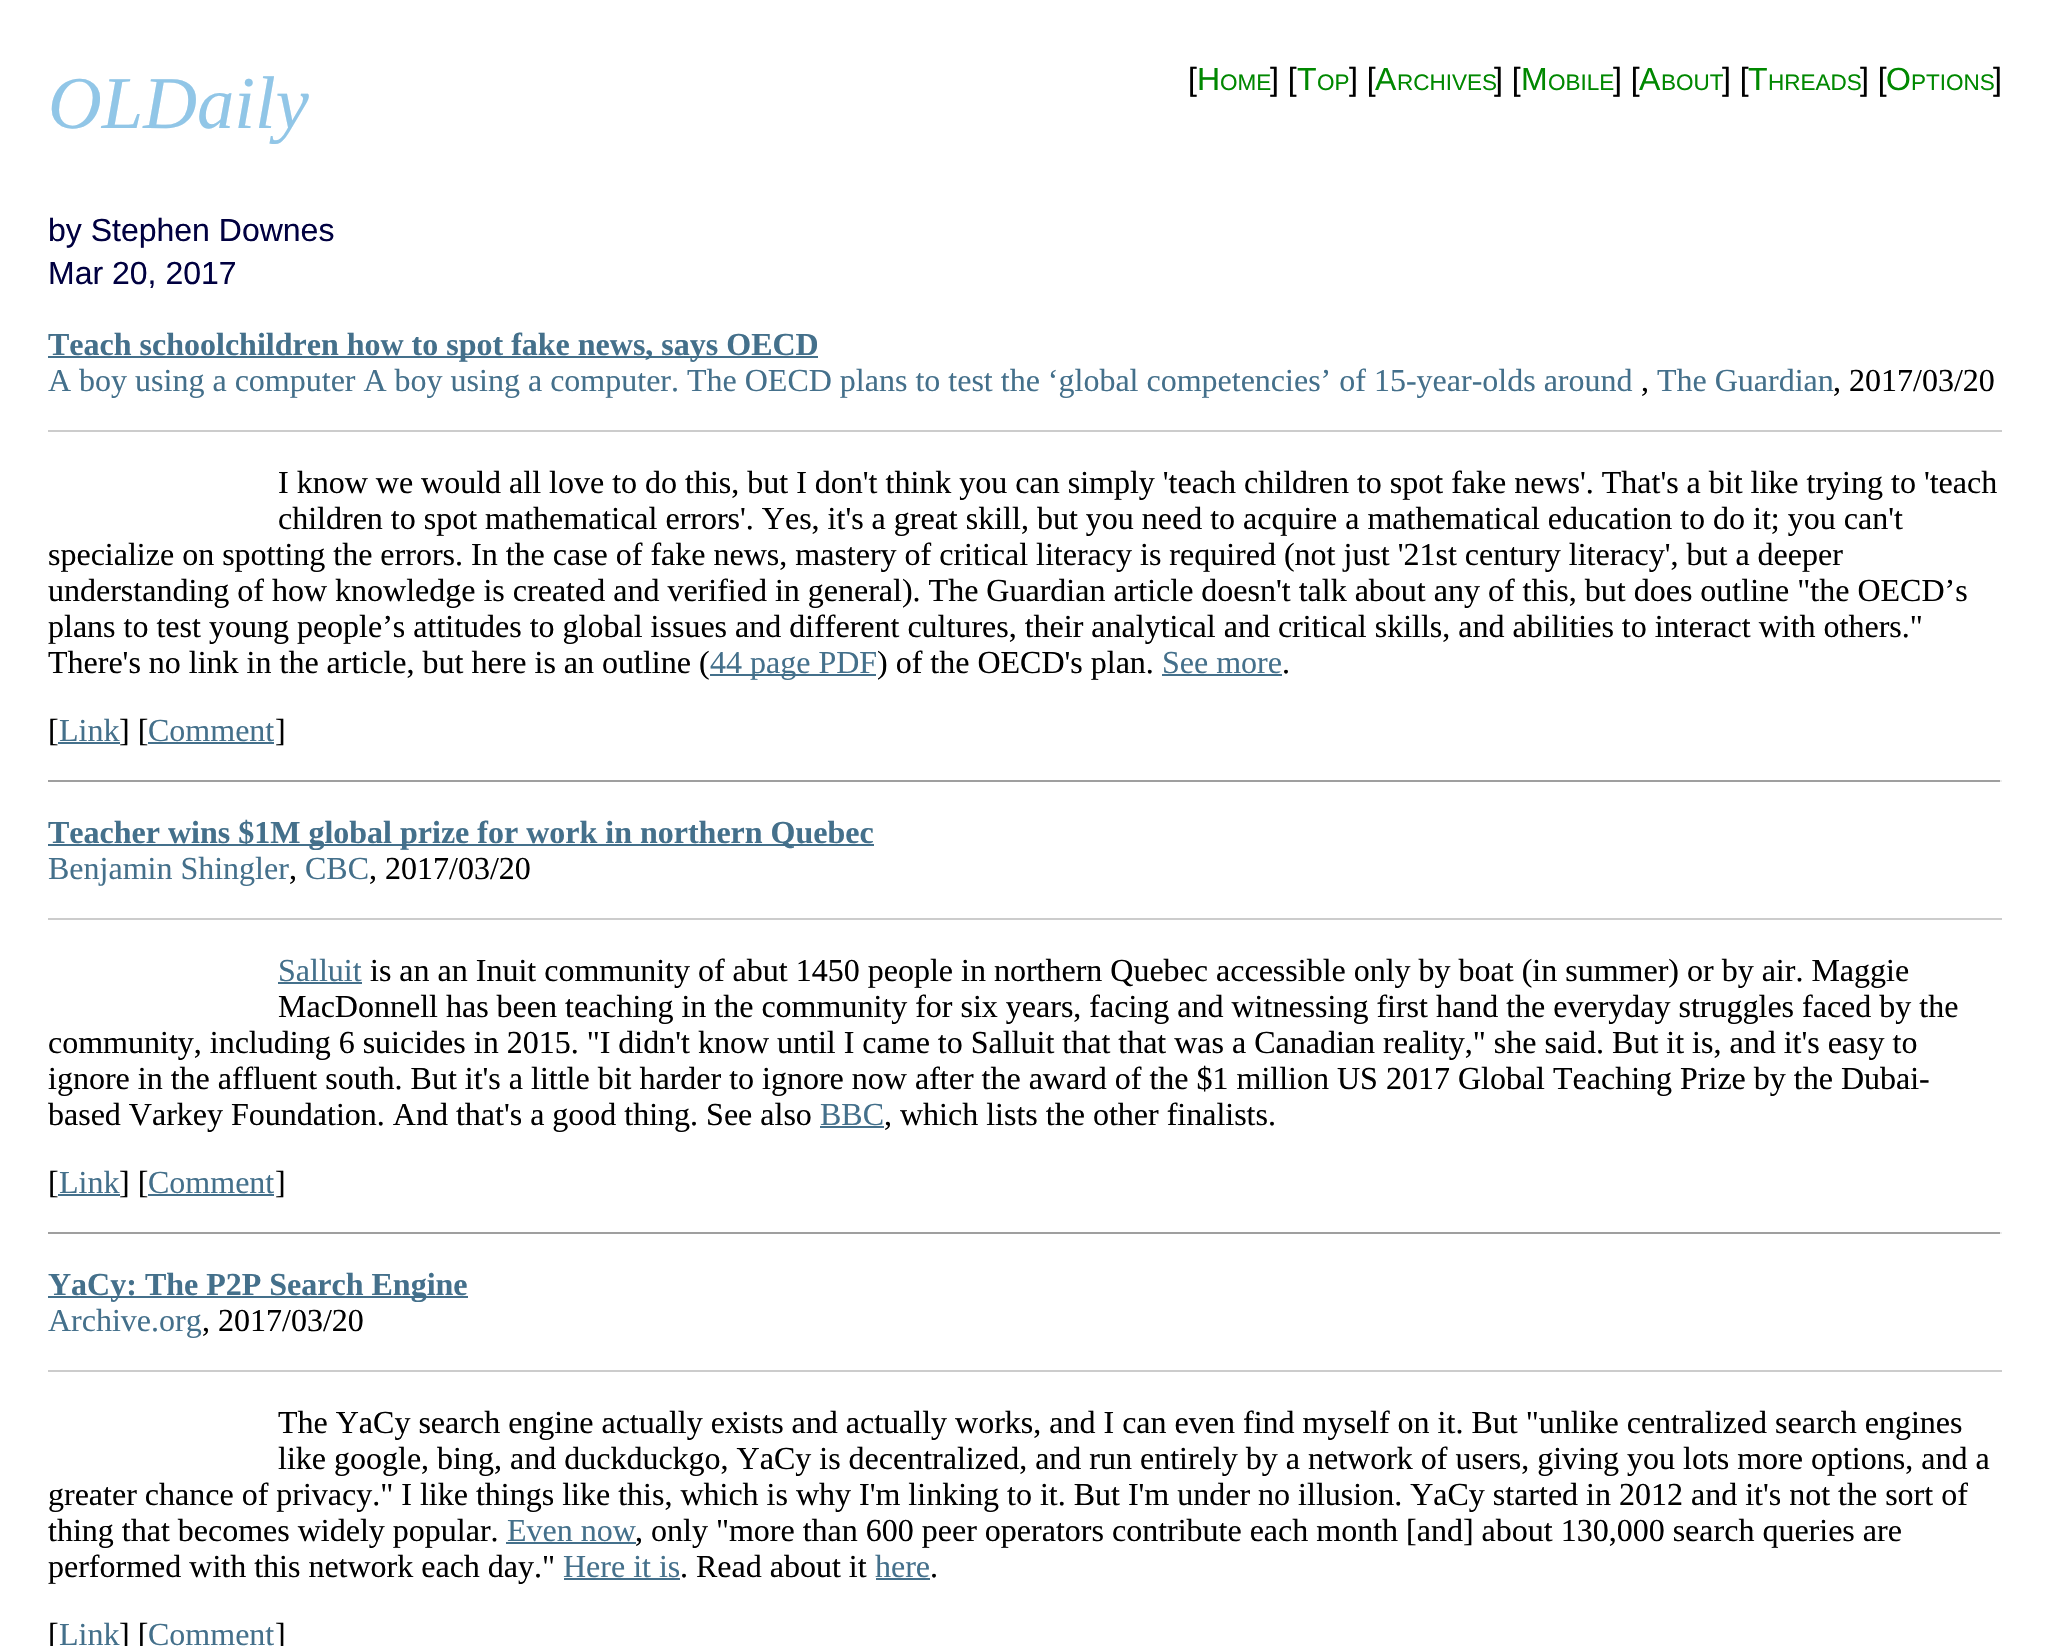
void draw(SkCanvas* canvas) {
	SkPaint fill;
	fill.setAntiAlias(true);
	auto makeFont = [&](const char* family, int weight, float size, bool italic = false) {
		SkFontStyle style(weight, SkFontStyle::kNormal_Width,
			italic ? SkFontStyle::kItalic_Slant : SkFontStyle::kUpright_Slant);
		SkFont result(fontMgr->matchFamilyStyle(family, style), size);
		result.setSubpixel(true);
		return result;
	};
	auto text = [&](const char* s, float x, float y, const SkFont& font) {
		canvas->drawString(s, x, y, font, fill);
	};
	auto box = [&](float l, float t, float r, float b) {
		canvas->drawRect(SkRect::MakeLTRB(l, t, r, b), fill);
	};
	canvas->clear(0xFFFFFFFF);
	fill.setColor(0xFF44708B);
	box(48, 356, 818, 358);
	fill.setColor(0xFFCCCCCC);
	box(48, 430, 2002, 432);
	fill.setColor(0xFF44708B);
	box(710, 674, 876, 676);
	box(1162, 674, 1282, 676);
	box(58, 742, 120, 744);
	box(148, 742, 274, 744);
	fill.setColor(0xFF9F9F9F);
	box(48, 780, 2002, 782);
	fill.setColor(0xFFEEEEEE);
	box(2000, 780, 2002, 782);
	fill.setColor(0xFF44708B);
	box(48, 844, 874, 846);
	fill.setColor(0xFFCCCCCC);
	box(48, 918, 2002, 920);
	fill.setColor(0xFF44708B);
	box(278, 982, 362, 984);
	box(820, 1126, 884, 1128);
	box(58, 1194, 120, 1196);
	box(148, 1194, 274, 1196);
	fill.setColor(0xFF9F9F9F);
	box(48, 1232, 2002, 1234);
	fill.setColor(0xFFEEEEEE);
	box(2000, 1232, 2002, 1234);
	fill.setColor(0xFF44708B);
	box(48, 1296, 468, 1298);
	fill.setColor(0xFFCCCCCC);
	box(48, 1370, 2002, 1372);
	fill.setColor(0xFF44708B);
	box(506, 1542, 636, 1544);
	box(564, 1578, 680, 1580);
	box(876, 1578, 930, 1580);
	auto font1 = makeFont("Liberation Sans", 400, 32);
	fill.setColor(0xFF000000);
	text("[", 1188, 90, font1);
	fill.setColor(0xFF008800);
	text("H", 1197, 90, font1);
	auto font2 = makeFont("Liberation Sans", 400, 22.5f);
	text("OME", 1220, 90, font2);
	fill.setColor(0xFF000000);
	text("] [", 1270, 90, font1);
	fill.setColor(0xFF008800);
	text("T", 1297, 90, font1);
	text("OP", 1317, 90, font2);
	fill.setColor(0xFF000000);
	text("] [", 1349, 90, font1);
	fill.setColor(0xFF008800);
	text("A", 1375, 90, font1);
	text("RCHIVES", 1397, 90, font2);
	fill.setColor(0xFF000000);
	text("] [", 1494, 90, font1);
	fill.setColor(0xFF008800);
	text("M", 1521, 90, font1);
	text("OBILE", 1548, 90, font2);
	fill.setColor(0xFF000000);
	text("] [", 1613, 90, font1);
	fill.setColor(0xFF008800);
	text("A", 1639, 90, font1);
	text("BOUT", 1661, 90, font2);
	fill.setColor(0xFF000000);
	text("] [", 1722, 90, font1);
	fill.setColor(0xFF008800);
	text("T", 1748, 90, font1);
	text("HREADS", 1768, 90, font2);
	fill.setColor(0xFF000000);
	text("] [", 1860, 90, font1);
	fill.setColor(0xFF008800);
	text("O", 1886, 90, font1);
	text("PTIONS", 1911, 90, font2);
	fill.setColor(0xFF000000);
	text("]", 1993, 90, font1);
	auto font3 = makeFont("Liberation Serif", 400, 74.5f, true);
	fill.setColor(0xFF91C6E7);
	text("OLDaily", 48, 128, font3);
	fill.setColor(0xFF000040);
	text("by Stephen Downes", 48, 241, font1);
	text("Mar 20, 2017", 48, 284, font1);
	auto font4 = makeFont("Liberation Serif", 700, 32);
	fill.setColor(0xFF44708B);
	text("Teach schoolchildren how to spot fake news, says OECD", 48, 355, font4);
	auto font5 = makeFont("Liberation Serif", 400, 32);
	text("A boy using a computer A boy using a computer. The OECD plans to test the ‘global competencies’ of 15-year-olds around", 48, 391, font5);
	fill.setColor(0xFF000000);
	text(",", 1641, 391, font5);
	fill.setColor(0xFF44708B);
	text("The Guardian", 1657, 391, font5);
	fill.setColor(0xFF000000);
	text(", 2017/03/20", 1833, 391, font5);
	text("I know we would all love to do this, but I don't think you can simply 'teach children to spot fake news'. That's a bit like trying to 'teach", 278, 493, font5);
	text("children to spot mathematical errors'. Yes, it's a great skill, but you need to acquire a mathematical education to do it; you can't", 278, 529, font5);
	text("specialize on spotting the errors. In the case of fake news, mastery of critical literacy is required (not just '21st century literacy', but a deeper", 48, 565, font5);
	text("understanding of how knowledge is created and verified in general). The Guardian article doesn't talk about any of this, but does outline \"the OECD’s", 48, 601, font5);
	text("plans to test young people’s attitudes to global issues and different cultures, their analytical and critical skills, and abilities to interact with others.\"", 48, 637, font5);
	text("There's no link in the article, but here is an outline (", 48, 673, font5);
	fill.setColor(0xFF44708B);
	text("44 page PDF", 710, 673, font5);
	fill.setColor(0xFF000000);
	text(") of the OECD's plan.", 877, 673, font5);
	fill.setColor(0xFF44708B);
	text("See more", 1162, 673, font5);
	fill.setColor(0xFF000000);
	text(".", 1282, 673, font5);
	text("[", 48, 741, font5);
	fill.setColor(0xFF44708B);
	text("Link", 59, 741, font5);
	fill.setColor(0xFF000000);
	text("] [", 119, 741, font5);
	fill.setColor(0xFF44708B);
	text("Comment", 148, 741, font5);
	fill.setColor(0xFF000000);
	text("]", 275, 741, font5);
	fill.setColor(0xFF44708B);
	text("Teacher wins $1M global prize for work in northern Quebec", 48, 843, font4);
	text("Benjamin Shingler", 48, 879, font5);
	fill.setColor(0xFF000000);
	text(",", 289, 879, font5);
	fill.setColor(0xFF44708B);
	text("CBC", 305, 879, font5);
	fill.setColor(0xFF000000);
	text(", 2017/03/20", 369, 879, font5);
	fill.setColor(0xFF44708B);
	text("Salluit", 278, 981, font5);
	fill.setColor(0xFF000000);
	text("is an an Inuit community of abut 1450 people in northern Quebec accessible only by boat (in summer) or by air. Maggie", 370, 981, font5);
	text("MacDonnell has been teaching in the community for six years, facing and witnessing first hand the everyday struggles faced by the", 278, 1017, font5);
	text("community, including 6 suicides in 2015. \"I didn't know until I came to Salluit that that was a Canadian reality,\" she said. But it is, and it's easy to", 48, 1053, font5);
	text("ignore in the affluent south. But it's a little bit harder to ignore now after the award of the $1 million US 2017 Global Teaching Prize by the Dubai-", 48, 1089, font5);
	text("based Varkey Foundation. And that's a good thing. See also", 48, 1125, font5);
	fill.setColor(0xFF44708B);
	text("BBC", 820, 1125, font5);
	fill.setColor(0xFF000000);
	text(", which lists the other finalists.", 884, 1125, font5);
	text("[", 48, 1193, font5);
	fill.setColor(0xFF44708B);
	text("Link", 59, 1193, font5);
	fill.setColor(0xFF000000);
	text("] [", 119, 1193, font5);
	fill.setColor(0xFF44708B);
	text("Comment", 148, 1193, font5);
	fill.setColor(0xFF000000);
	text("]", 275, 1193, font5);
	fill.setColor(0xFF44708B);
	text("YaCy: The P2P Search Engine", 48, 1295, font4);
	text("Archive.org", 48, 1331, font5);
	fill.setColor(0xFF000000);
	text(", 2017/03/20", 202, 1331, font5);
	text("The YaCy search engine actually exists and actually works, and I can even find myself on it. But \"unlike centralized search engines", 278, 1433, font5);
	text("like google, bing, and duckduckgo, YaCy is decentralized, and run entirely by a network of users, giving you lots more options, and a", 278, 1469, font5);
	text("greater chance of privacy.\" I like things like this, which is why I'm linking to it. But I'm under no illusion. YaCy started in 2012 and it's not the sort of", 48, 1505, font5);
	text("thing that becomes widely popular.", 48, 1541, font5);
	fill.setColor(0xFF44708B);
	text("Even now", 507, 1541, font5);
	fill.setColor(0xFF000000);
	text(", only \"more than 600 peer operators contribute each month [and] about 130,000 search queries are", 635, 1541, font5);
	text("performed with this network each day.\"", 48, 1577, font5);
	fill.setColor(0xFF44708B);
	text("Here it is", 563, 1577, font5);
	fill.setColor(0xFF000000);
	text(". Read about it", 680, 1577, font5);
	fill.setColor(0xFF44708B);
	text("here", 875, 1577, font5);
	fill.setColor(0xFF000000);
	text(".", 930, 1577, font5);
	text("[", 48, 1645, font5);
	fill.setColor(0xFF44708B);
	text("Link", 59, 1645, font5);
	fill.setColor(0xFF000000);
	text("] [", 119, 1645, font5);
	fill.setColor(0xFF44708B);
	text("Comment", 148, 1645, font5);
	fill.setColor(0xFF000000);
	text("]", 275, 1645, font5);
}
